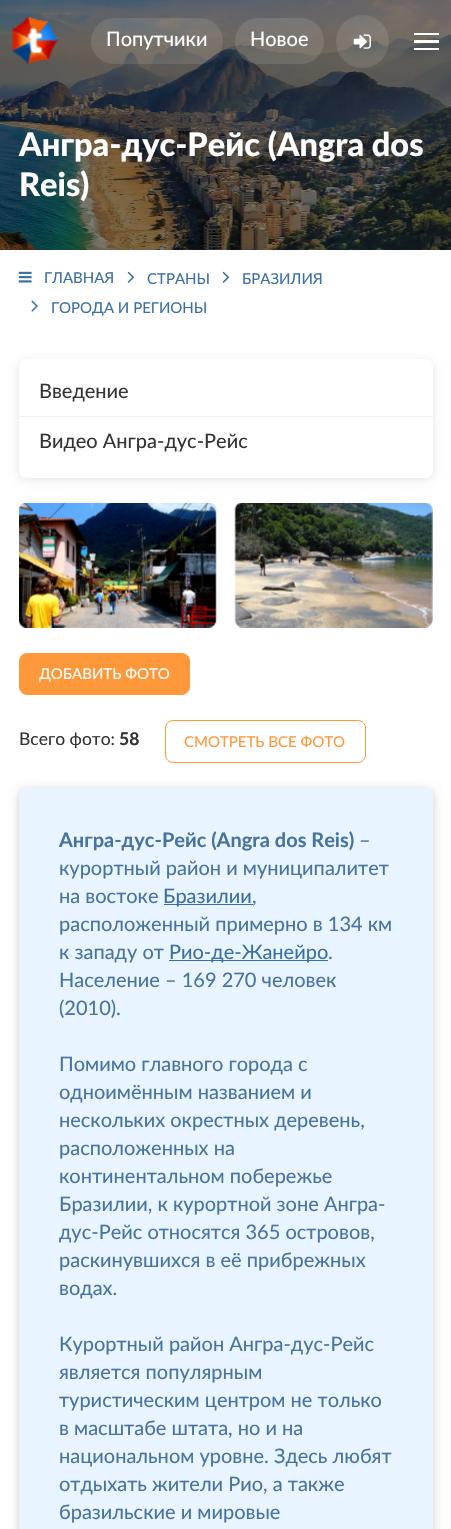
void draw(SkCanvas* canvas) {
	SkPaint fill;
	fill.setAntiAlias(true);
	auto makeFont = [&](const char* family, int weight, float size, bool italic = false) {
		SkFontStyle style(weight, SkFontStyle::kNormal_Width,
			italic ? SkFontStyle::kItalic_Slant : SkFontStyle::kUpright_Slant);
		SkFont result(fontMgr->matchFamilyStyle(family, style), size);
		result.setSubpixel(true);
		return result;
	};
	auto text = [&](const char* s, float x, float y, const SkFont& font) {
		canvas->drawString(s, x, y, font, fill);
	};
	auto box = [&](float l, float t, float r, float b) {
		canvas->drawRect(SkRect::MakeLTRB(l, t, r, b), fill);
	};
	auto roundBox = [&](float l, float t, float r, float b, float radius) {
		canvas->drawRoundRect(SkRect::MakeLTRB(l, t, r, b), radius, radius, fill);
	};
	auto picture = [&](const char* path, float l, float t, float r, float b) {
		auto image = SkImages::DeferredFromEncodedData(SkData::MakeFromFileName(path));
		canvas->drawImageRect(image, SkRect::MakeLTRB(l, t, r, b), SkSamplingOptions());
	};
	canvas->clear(0xFFFFFFFF);
	picture("image0.png", 0, 0, 451, 250);
	picture("image1.png", 12, 17, 58, 64);
	fill.setColor(0x1AFFFFFF);
	roundBox(91, 18, 223, 64, 23);
	roundBox(235, 18, 324, 64, 23);
	canvas->drawCircle(362.5f, 41.5f, 26.5f, fill);
	picture("image2.png", 353, 34, 371, 49);
	fill.setColor(0xFFFFFFFF);
	box(414, 40, 439, 43);
	box(414, 33, 439, 35);
	box(414, 48, 439, 50);
	picture("image3.png", 18, 271, 32, 283);
	picture("image4.png", 127, 271, 135, 283);
	picture("image4.png", 222, 271, 230, 283);
	picture("image5.png", 31, 300, 38, 312);
	canvas->save();
	canvas->clipPath(SkPathBuilder(SkPathFillType::kEvenOdd).moveTo(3, 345).lineTo(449, 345).lineTo(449, 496).lineTo(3, 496).close().moveTo(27, 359).lineTo(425, 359).cubicTo(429.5f, 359, 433, 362.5f, 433, 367).lineTo(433, 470).cubicTo(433, 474.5f, 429.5f, 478, 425, 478).lineTo(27, 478).cubicTo(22.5f, 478, 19, 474.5f, 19, 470).lineTo(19, 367).cubicTo(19, 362.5f, 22.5f, 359, 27, 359).close().detach(), true);
	fill.setColor(0x1A000000);
	fill.setMaskFilter(SkMaskFilter::MakeBlur(kNormal_SkBlurStyle, 5));
	canvas->drawRoundRect(SkRect::MakeLTRB(19, 361, 433, 480), 8, 8, fill);
	fill.setMaskFilter(nullptr);
	canvas->restore();
	fill.setColor(0x1A48729E);
	box(19, 416, 433, 417);
	picture("image6.png", 19, 503, 217, 628);
	picture("image7.png", 234, 503, 433, 628);
	fill.setColor(0xFFFF983A);
	canvas->drawRoundRect(SkRect::MakeLTRB(19.5f, 653.5f, 189.5f, 694.5f), 7.5f, 7.5f, fill);
	fill.setStyle(SkPaint::kStroke_Style);
	fill.setStrokeWidth(1);
	canvas->drawRoundRect(SkRect::MakeLTRB(19.5f, 653.5f, 189.5f, 694.5f), 7.5f, 7.5f, fill);
	canvas->drawRoundRect(SkRect::MakeLTRB(165.5f, 720.5f, 365.5f, 762.5f), 7.5f, 7.5f, fill);
	fill.setStyle(SkPaint::kFill_Style);
	fill.setColor(0x1A000000);
	fill.setMaskFilter(SkMaskFilter::MakeBlur(kNormal_SkBlurStyle, 5));
	canvas->drawRoundRect(SkRect::MakeLTRB(19, 790, 433, 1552), 8, 8, fill);
	fill.setMaskFilter(nullptr);
	fill.setMaskFilter(SkMaskFilter::MakeBlur(kNormal_SkBlurStyle, 5));
	canvas->drawRoundRect(SkRect::MakeLTRB(19, 790, 433, 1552), 8, 8, fill);
	fill.setMaskFilter(nullptr);
	fill.setColor(0xFFE8F4FF);
	roundBox(19, 788, 433, 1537, 8);
	fill.setColor(0xFF396FA4);
	box(164, 904, 253, 905);
	box(169, 960, 328, 961);
	auto font1 = makeFont("Lato", 400, 20);
	fill.setColor(0xFFFFFFFF);
	text("Попутчики", 106, 46, font1);
	text("Новое", 250, 46, font1);
	auto font2 = makeFont("Lato", 900, 32.5f);
	text("Ангра-дус-Рейс (Angra dos", 19, 156, font2);
	text("Reis)", 19, 196, font2);
	auto font3 = makeFont("Lato", 400, 15);
	fill.setColor(0xFF396FA4);
	text("ГЛАВНАЯ", 44, 283, font3);
	text("СТРАНЫ", 147, 284, font3);
	text("БРАЗИЛИЯ", 242, 284, font3);
	text("ГОРОДА И РЕГИОНЫ", 51, 313, font3);
	fill.setColor(0xFF333333);
	text("Введение", 39, 398, font1);
	text("Видео Ангра-дус-Рейс", 39, 448, font1);
	fill.setColor(0xFFFFFFFF);
	text("ДОБАВИТЬ ФОТО", 39, 679, font3);
	auto font4 = makeFont("Lato", 400, 17.5f);
	fill.setColor(0xFF333333);
	text("Всего фото:", 19, 745, font4);
	auto font5 = makeFont("Lato", 700, 17.5f);
	text("58", 119, 745, font5);
	fill.setColor(0xFFFF983A);
	text("СМОТРЕТЬ ВСЕ ФОТО", 184, 747, font3);
	auto font6 = makeFont("Lato", 700, 20);
	fill.setColor(0xFF48729F);
	text("Ангра-дус-Рейс (Angra dos Reis)", 59, 847, font6);
	text("–", 359, 847, font1);
	text("курортный район и муниципалитет", 59, 875, font1);
	text("на востоке", 59, 903, font1);
	fill.setColor(0xFF396FA4);
	text("Бразилии", 163, 903, font1);
	fill.setColor(0xFF48729F);
	text(",", 252, 903, font1);
	text("расположенный примерно в 134 км", 59, 931, font1);
	text("к западу от", 59, 959, font1);
	fill.setColor(0xFF396FA4);
	text("Рио-де-Жанейро", 169, 959, font1);
	fill.setColor(0xFF48729F);
	text(".", 328, 959, font1);
	text("Население – 169 270 человек", 59, 987, font1);
	text("(2010).", 59, 1015, font1);
	text("Помимо главного города с", 59, 1071, font1);
	text("одноимённым названием и", 59, 1099, font1);
	text("нескольких окрестных деревень,", 59, 1127, font1);
	text("расположенных на", 59, 1155, font1);
	text("континентальном побережье", 59, 1183, font1);
	text("Бразилии, к курортной зоне Ангра-", 59, 1211, font1);
	text("дус-Рейс относятся 365 островов,", 59, 1239, font1);
	text("раскинувшихся в её прибрежных", 59, 1267, font1);
	text("водах.", 59, 1295, font1);
	text("Курортный район Ангра-дус-Рейс", 59, 1351, font1);
	text("является популярным", 59, 1379, font1);
	text("туристическим центром не только", 59, 1407, font1);
	text("в масштабе штата, но и на", 59, 1435, font1);
	text("национальном уровне. Здесь любят", 59, 1463, font1);
	text("отдыхать жители Рио, а также", 59, 1491, font1);
	text("бразильские и мировые", 59, 1519, font1);
}
